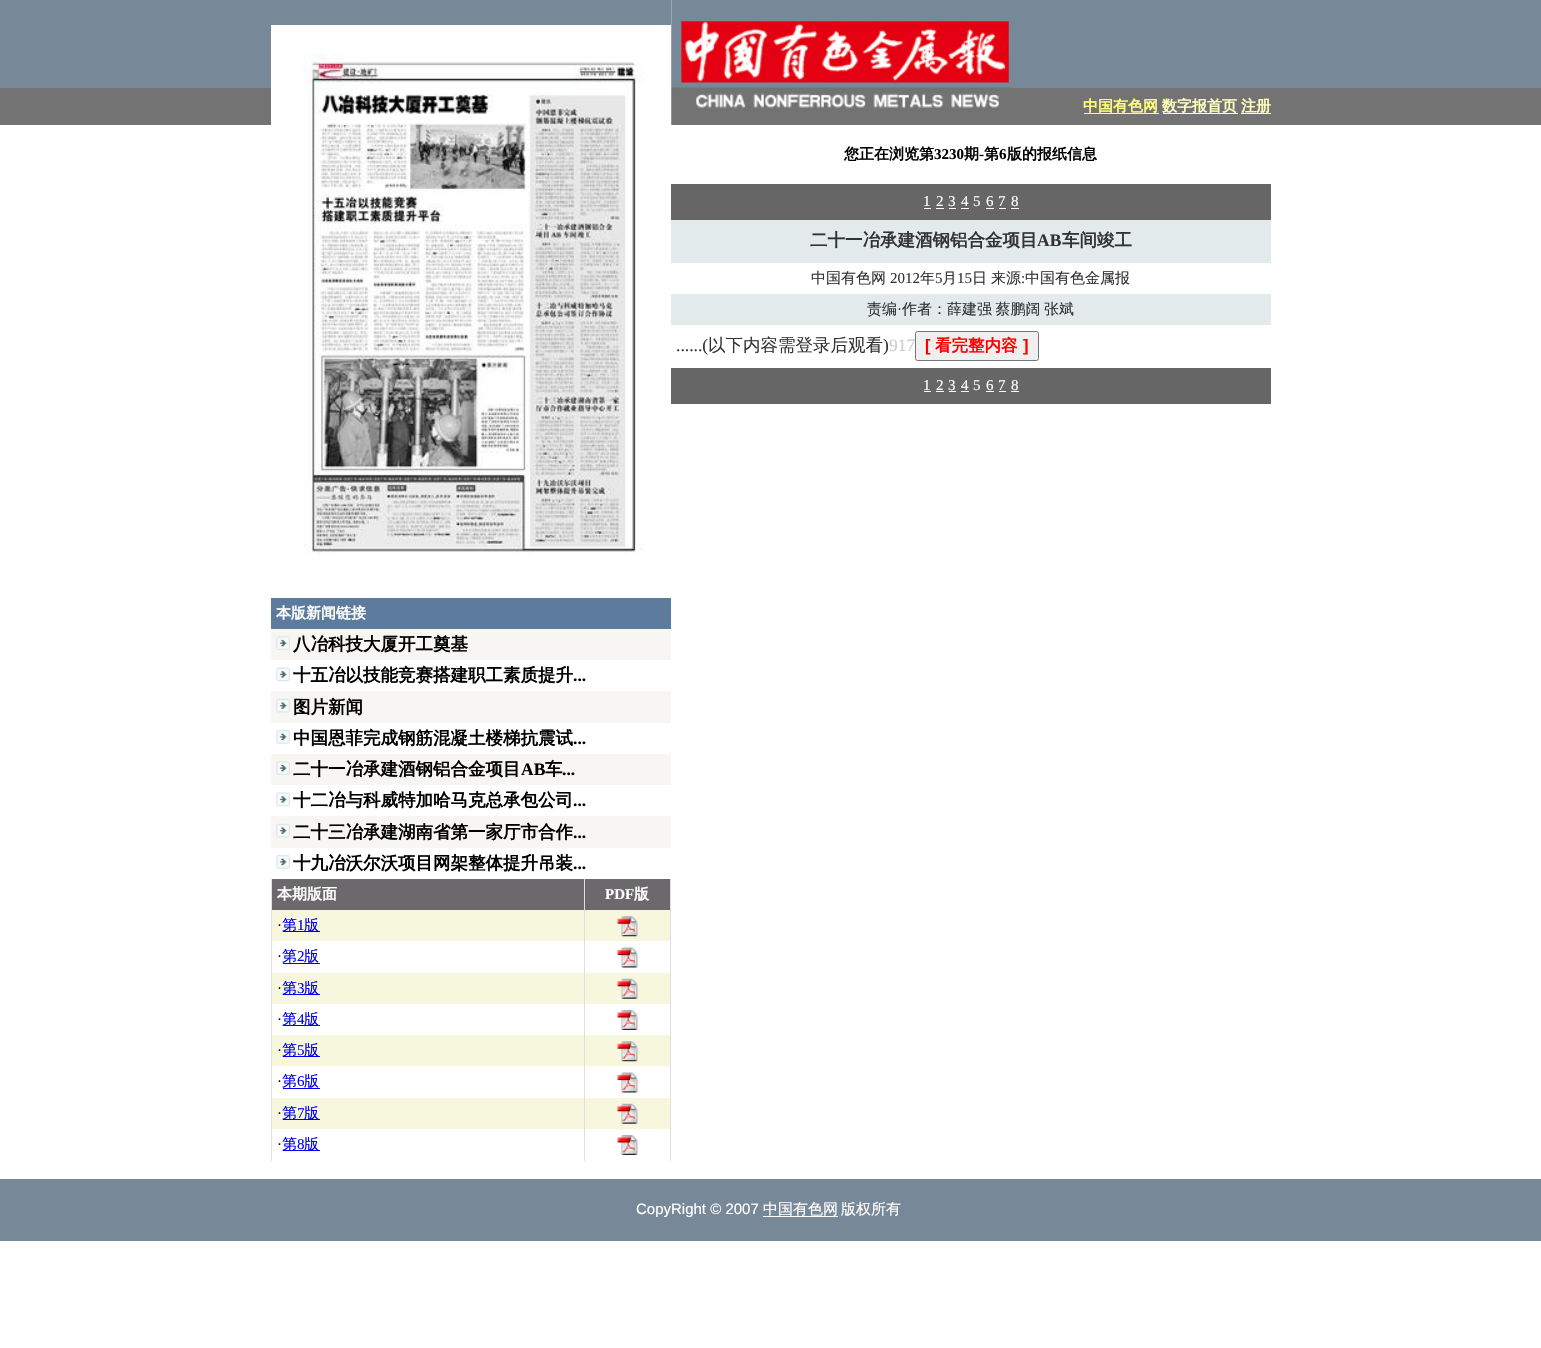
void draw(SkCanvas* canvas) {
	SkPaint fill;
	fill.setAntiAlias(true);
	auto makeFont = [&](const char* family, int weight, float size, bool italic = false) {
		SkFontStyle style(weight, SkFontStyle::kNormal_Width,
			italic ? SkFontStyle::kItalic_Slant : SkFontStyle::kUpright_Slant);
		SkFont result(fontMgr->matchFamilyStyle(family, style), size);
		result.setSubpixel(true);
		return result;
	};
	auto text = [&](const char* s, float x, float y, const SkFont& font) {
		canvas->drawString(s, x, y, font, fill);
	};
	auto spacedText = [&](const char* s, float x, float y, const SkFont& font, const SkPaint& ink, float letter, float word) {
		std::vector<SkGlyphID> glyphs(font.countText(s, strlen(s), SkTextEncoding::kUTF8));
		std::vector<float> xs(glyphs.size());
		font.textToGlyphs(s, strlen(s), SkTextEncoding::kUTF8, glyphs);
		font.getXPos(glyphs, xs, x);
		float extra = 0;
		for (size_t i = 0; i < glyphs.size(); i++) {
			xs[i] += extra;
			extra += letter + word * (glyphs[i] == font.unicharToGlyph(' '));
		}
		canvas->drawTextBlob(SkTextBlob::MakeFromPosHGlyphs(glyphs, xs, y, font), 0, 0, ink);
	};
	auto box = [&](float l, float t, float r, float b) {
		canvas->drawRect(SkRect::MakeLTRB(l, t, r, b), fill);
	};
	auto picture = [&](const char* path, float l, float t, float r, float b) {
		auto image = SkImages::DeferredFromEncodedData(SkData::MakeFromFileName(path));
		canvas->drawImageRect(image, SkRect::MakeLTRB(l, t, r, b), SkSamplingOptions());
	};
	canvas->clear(0xFFFFFFFF);
	fill.setColor(0xFF778899);
	box(0, 0, 271, 88);
	fill.setColor(0xFF737373);
	box(0, 88, 271, 125);
	fill.setColor(0xFF778899);
	box(1011, 0, 1541, 88);
	fill.setColor(0xFF737373);
	box(1011, 88, 1541, 125);
	picture("image0.png", 671, 0, 1012, 125);
	fill.setColor(0xFFFFFF80);
	box(1084, 113, 1159, 114);
	fill.setColor(0xFFFFFFC0);
	box(1163, 113, 1238, 114);
	box(1241, 113, 1271, 114);
	fill.setColor(0xFF666666);
	box(671, 184, 1271, 220);
	fill.setColor(0xFFFFFFFF);
	box(924, 208, 931, 209);
	box(936, 208, 944, 209);
	box(949, 208, 956, 209);
	box(961, 208, 969, 209);
	box(986, 208, 994, 209);
	box(999, 208, 1006, 209);
	box(1011, 208, 1019, 209);
	fill.setColor(0xFFE3EAEB);
	box(671, 220, 1271, 263);
	box(671, 294, 1271, 325);
	fill.setColor(0xFFEFEFEF);
	canvas->drawRoundRect(SkRect::MakeLTRB(915.5f, 331.5f, 1038.5f, 360.5f), 2, 2, fill);
	fill.setStyle(SkPaint::kStroke_Style);
	fill.setStrokeWidth(1);
	fill.setColor(0xFF767676);
	canvas->drawRoundRect(SkRect::MakeLTRB(915.5f, 331.5f, 1038.5f, 360.5f), 2, 2, fill);
	fill.setStyle(SkPaint::kFill_Style);
	fill.setColor(0xFF666666);
	box(671, 368, 1271, 404);
	fill.setColor(0xFFFFFFFF);
	box(924, 391, 931, 392);
	box(936, 391, 944, 392);
	box(949, 391, 956, 392);
	box(961, 391, 969, 392);
	box(986, 391, 994, 392);
	box(999, 391, 1006, 392);
	box(1011, 391, 1019, 392);
	fill.setColor(0xFF778899);
	box(271, 0, 671, 25);
	picture("image1.png", 303, 53, 644, 554);
	fill.setColor(0xFF5D7B9D);
	box(271, 598, 671, 629);
	fill.setColor(0xFFF7F6F3);
	box(271, 629, 671, 660);
	picture("image2.png", 276, 636, 290, 650);
	picture("image3.png", 276, 667, 290, 682);
	box(271, 691, 671, 723);
	picture("image4.png", 276, 698, 290, 713);
	picture("image5.png", 276, 730, 290, 744);
	box(271, 754, 671, 785);
	picture("image2.png", 276, 761, 290, 775);
	picture("image3.png", 276, 792, 290, 807);
	box(271, 816, 671, 848);
	picture("image4.png", 276, 823, 290, 838);
	picture("image5.png", 276, 855, 290, 869);
	fill.setColor(0xFF6B696B);
	box(272, 879, 670, 910);
	fill.setColor(0xFFF7F7DE);
	box(272, 910, 670, 941);
	fill.setColor(0xFF0000EE);
	box(283, 931, 320, 932);
	picture("image6.png", 617, 916, 638, 937);
	box(283, 963, 320, 964);
	picture("image7.png", 617, 947, 638, 968);
	fill.setColor(0xFFF7F7DE);
	box(272, 973, 670, 1004);
	fill.setColor(0xFF0000EE);
	box(283, 994, 320, 995);
	picture("image8.png", 617, 978, 638, 999);
	box(283, 1025, 320, 1026);
	picture("image9.png", 617, 1010, 638, 1030);
	fill.setColor(0xFFF7F7DE);
	box(272, 1035, 670, 1066);
	fill.setColor(0xFF0000EE);
	box(283, 1056, 320, 1057);
	picture("image6.png", 617, 1041, 638, 1062);
	box(283, 1088, 320, 1089);
	picture("image7.png", 617, 1072, 638, 1093);
	fill.setColor(0xFFF7F7DE);
	box(272, 1098, 670, 1129);
	fill.setColor(0xFF0000EE);
	box(283, 1119, 320, 1120);
	picture("image8.png", 617, 1103, 638, 1124);
	fill.setColor(0xFFDEDFDE);
	box(271, 879, 272, 1161);
	fill.setColor(0xFF0000EE);
	box(283, 1150, 320, 1151);
	fill.setColor(0xFFDEDFDE);
	box(670, 879, 671, 1161);
	box(584, 879, 585, 1161);
	picture("image9.png", 617, 1135, 638, 1155);
	fill.setColor(0xFF778899);
	box(0, 1179, 1541, 1241);
	fill.setColor(0xFFFFFFFF);
	box(763, 1216, 838, 1217);
	auto font1 = makeFont("WenQuanYi Zen Hei", 700, 15);
	fill.setColor(0xFFFFFF80);
	text("中国有色网", 1083, 111, font1);
	fill.setColor(0xFFFFFFC0);
	text("数字报首页", 1162, 111, font1);
	text("注册", 1241, 111, font1);
	fill.setColor(0xFF000000);
	text("您正在浏览第", 844, 159, font1);
	auto font2 = makeFont("Liberation Serif", 700, 15);
	text("3230", 934, 159, font2);
	text("期", 964, 159, font1);
	text("-", 979, 159, font2);
	text("第", 984, 159, font1);
	text("6", 999, 159, font2);
	text("版的报纸信息", 1007, 159, font1);
	auto font3 = makeFont("Liberation Serif", 400, 15);
	fill.setColor(0xFFFFFFFF);
	text("1", 923, 206, font3);
	text("2", 936, 206, font3);
	text("3", 948, 206, font3);
	text("4", 961, 206, font3);
	text("5", 973, 206, font3);
	text("6", 986, 206, font3);
	text("7", 998, 206, font3);
	text("8", 1011, 206, font3);
	auto font4 = makeFont("WenQuanYi Zen Hei", 700, 17.5f);
	fill.setColor(0xFF333333);
	text("二十一冶承建酒钢铝合金项目", 810, 246, font4);
	auto font5 = makeFont("Liberation Serif", 700, 17.5f);
	text("AB", 1037, 246, font5);
	text("车间竣工", 1062, 246, font4);
	auto font6 = makeFont("WenQuanYi Zen Hei", 500, 15);
	text("中国有色网", 811, 283, font6);
	text("2012", 890, 283, font3);
	text("年", 920, 283, font6);
	text("5", 935, 283, font3);
	text("月", 942, 283, font6);
	text("15", 957, 283, font3);
	text("日", 972, 283, font6);
	text("来源", 991, 283, font6);
	text(":", 1021, 283, font3);
	text("中国有色金属报", 1025, 283, font6);
	text("责编", 867, 314, font6);
	text("·", 897, 314, font3);
	spacedText("作者：薛建强 蔡鹏阔 张斌", 902, 314, font6, fill, 0, -1);
	auto font7 = makeFont("Liberation Serif", 400, 17.5f);
	text("......(", 676, 351, font7);
	auto font8 = makeFont("WenQuanYi Zen Hei", 500, 17.5f);
	text("以下内容需登录后观看", 708, 351, font8);
	text(")", 883, 351, font7);
	fill.setColor(0xFFCCCCCC);
	text("917", 889, 351, font7);
	auto font9 = makeFont("Liberation Sans", 700, 16.5f);
	fill.setColor(0xFFFF0000);
	text("[", 925, 351, font9);
	auto font10 = makeFont("WenQuanYi Zen Hei", 700, 16.5f);
	text("看完整内容", 935, 351, font10);
	text("]", 1023, 351, font9);
	fill.setColor(0xFFFFFFFF);
	text("1", 923, 390, font3);
	text("2", 936, 390, font3);
	text("3", 948, 390, font3);
	text("4", 961, 390, font3);
	text("5", 973, 390, font3);
	text("6", 986, 390, font3);
	text("7", 998, 390, font3);
	text("8", 1011, 390, font3);
	text("本版新闻链接", 276, 618, font1);
	fill.setColor(0xFF000000);
	text("八冶科技大厦开工奠基", 293, 650, font4);
	text("十五冶以技能竞赛搭建职工素质提升", 293, 681, font4);
	text("...", 573, 681, font5);
	text("图片新闻", 293, 713, font4);
	text("中国恩菲完成钢筋混凝土楼梯抗震试", 293, 744, font4);
	text("...", 573, 744, font5);
	text("二十一冶承建酒钢铝合金项目", 293, 775, font4);
	text("AB", 521, 775, font5);
	text("车", 545, 775, font4);
	text("...", 562, 775, font5);
	text("十二冶与科威特加哈马克总承包公司", 293, 806, font4);
	text("...", 573, 806, font5);
	text("二十三冶承建湖南省第一家厅市合作", 293, 838, font4);
	text("...", 573, 838, font5);
	text("十九冶沃尔沃项目网架整体提升吊装", 293, 869, font4);
	text("...", 573, 869, font5);
	fill.setColor(0xFFFFFFFF);
	text("本期版面", 277, 899, font1);
	text("PDF", 605, 899, font2);
	text("版", 634, 899, font1);
	fill.setColor(0xFF000000);
	text("·", 277, 930, font3);
	fill.setColor(0xFF0000EE);
	text("第", 282, 930, font6);
	text("1", 297, 930, font3);
	text("版", 304, 930, font6);
	fill.setColor(0xFF000000);
	text("·", 277, 961, font3);
	fill.setColor(0xFF0000EE);
	text("第", 282, 961, font6);
	text("2", 297, 961, font3);
	text("版", 304, 961, font6);
	fill.setColor(0xFF000000);
	text("·", 277, 993, font3);
	fill.setColor(0xFF0000EE);
	text("第", 282, 993, font6);
	text("3", 297, 993, font3);
	text("版", 304, 993, font6);
	fill.setColor(0xFF000000);
	text("·", 277, 1024, font3);
	fill.setColor(0xFF0000EE);
	text("第", 282, 1024, font6);
	text("4", 297, 1024, font3);
	text("版", 304, 1024, font6);
	fill.setColor(0xFF000000);
	text("·", 277, 1055, font3);
	fill.setColor(0xFF0000EE);
	text("第", 282, 1055, font6);
	text("5", 297, 1055, font3);
	text("版", 304, 1055, font6);
	fill.setColor(0xFF000000);
	text("·", 277, 1086, font3);
	fill.setColor(0xFF0000EE);
	text("第", 282, 1086, font6);
	text("6", 297, 1086, font3);
	text("版", 304, 1086, font6);
	fill.setColor(0xFF000000);
	text("·", 277, 1118, font3);
	fill.setColor(0xFF0000EE);
	text("第", 282, 1118, font6);
	text("7", 297, 1118, font3);
	text("版", 304, 1118, font6);
	fill.setColor(0xFF000000);
	text("·", 277, 1149, font3);
	fill.setColor(0xFF0000EE);
	text("第", 282, 1149, font6);
	text("8", 297, 1149, font3);
	text("版", 304, 1149, font6);
	auto font11 = makeFont("Liberation Sans", 400, 15);
	fill.setColor(0xFFFFFFFF);
	text("CopyRight © 2007", 636, 1214, font11);
	text("中国有色网", 763, 1214, font6);
	text("版权所有", 841, 1214, font6);
}
